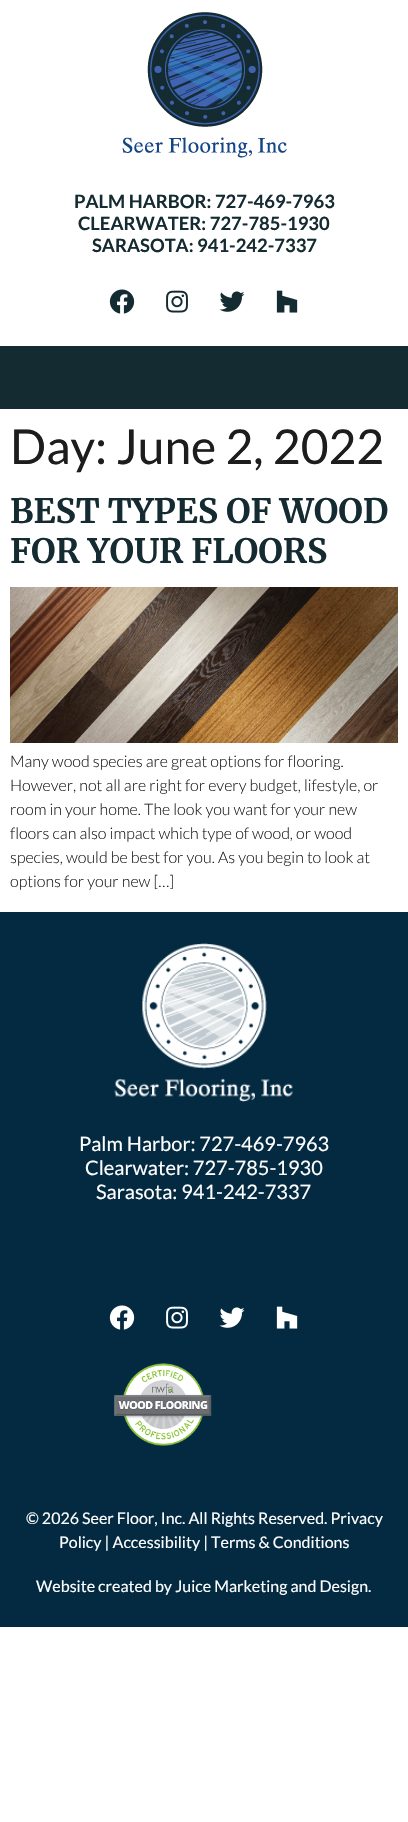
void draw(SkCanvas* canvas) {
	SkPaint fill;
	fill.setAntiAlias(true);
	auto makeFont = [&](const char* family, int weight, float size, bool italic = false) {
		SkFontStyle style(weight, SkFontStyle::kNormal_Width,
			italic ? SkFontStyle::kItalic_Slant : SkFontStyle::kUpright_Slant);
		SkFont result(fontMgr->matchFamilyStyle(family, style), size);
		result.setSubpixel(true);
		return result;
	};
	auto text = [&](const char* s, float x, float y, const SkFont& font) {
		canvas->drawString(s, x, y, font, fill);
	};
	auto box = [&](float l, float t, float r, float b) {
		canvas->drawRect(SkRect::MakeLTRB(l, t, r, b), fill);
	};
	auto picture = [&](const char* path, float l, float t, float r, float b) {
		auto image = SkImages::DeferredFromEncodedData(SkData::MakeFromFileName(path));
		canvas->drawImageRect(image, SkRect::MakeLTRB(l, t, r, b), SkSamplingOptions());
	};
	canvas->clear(0xFFFFFFFF);
	picture("image0.png", 122, 12, 287, 158);
	picture("image1.png", 109, 289, 135, 314);
	picture("image2.png", 166, 290, 188, 313);
	picture("image3.png", 219, 291, 245, 312);
	picture("image4.png", 276, 290, 298, 313);
	fill.setColor(0xFF152B32);
	box(0, 346, 408, 409);
	picture("image5.png", 10, 587, 398, 743);
	fill.setColor(0xFF032A41);
	box(0, 912, 408, 1627);
	picture("image6.png", 114, 943, 293, 1102);
	picture("image7.png", 109, 1305, 135, 1330);
	picture("image8.png", 166, 1306, 188, 1329);
	picture("image9.png", 219, 1307, 245, 1328);
	picture("image10.png", 276, 1306, 298, 1329);
	picture("image11.png", 114, 1363, 212, 1446);
	auto font1 = makeFont("Lato", 700, 18.4f);
	fill.setColor(0xFF152B32);
	text("PALM HARBOR: 727-469-7963", 74, 208, font1);
	text("CLEARWATER: 727-785-1930", 78, 230, font1);
	text("SARASOTA: 941-242-7337", 92, 252, font1);
	auto font2 = makeFont("Lato", 400, 48);
	fill.setColor(0xFF1D1D1D);
	text("Day: June 2, 2022", 10, 464, font2);
	auto font3 = makeFont("Merriweather", 700, 33.6f);
	fill.setColor(0xFF152B32);
	text("BEST TYPES OF WOOD", 10, 523, font3);
	text("FOR YOUR FLOORS", 10, 563, font3);
	auto font4 = makeFont("Lato", 300, 16);
	fill.setColor(0xFF1D1D1D);
	text("Many wood species are great options for flooring.", 10, 767, font4);
	text("However, not all are right for every budget, lifestyle, or", 10, 791, font4);
	text("room in your home. The look you want for your new", 10, 815, font4);
	text("floors can also impact which type of wood, or wood", 10, 839, font4);
	text("species, would be best for you. As you begin to look at", 10, 863, font4);
	text("options for your new […]", 10, 887, font4);
	auto font5 = makeFont("Lato", 400, 20);
	fill.setColor(0xFFFFFFFF);
	text("Palm Harbor: 727-469-7963", 79, 1151, font5);
	text("Clearwater: 727-785-1930", 85, 1175, font5);
	text("Sarasota: 941-242-7337", 96, 1199, font5);
	auto font6 = makeFont("Lato", 400, 16);
	text("© 2026 Seer Floor, Inc. All Rights Reserved. Privacy", 26, 1524, font6);
	text("Policy | Accessibility | Terms & Conditions", 59, 1548, font6);
	text("Website created by Juice Marketing and Design.", 36, 1592, font6);
}
